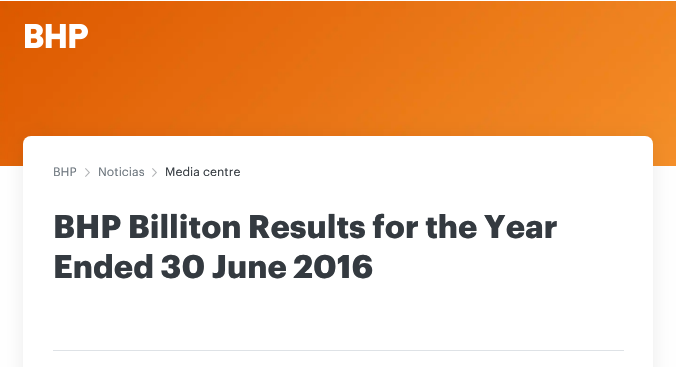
void draw(SkCanvas* canvas) {
	SkPaint fill;
	fill.setAntiAlias(true);
	auto makeFont = [&](const char* family, int weight, float size, bool italic = false) {
		SkFontStyle style(weight, SkFontStyle::kNormal_Width,
			italic ? SkFontStyle::kItalic_Slant : SkFontStyle::kUpright_Slant);
		SkFont result(fontMgr->matchFamilyStyle(family, style), size);
		result.setSubpixel(true);
		return result;
	};
	auto text = [&](const char* s, float x, float y, const SkFont& font) {
		canvas->drawString(s, x, y, font, fill);
	};
	auto box = [&](float l, float t, float r, float b) {
		canvas->drawRect(SkRect::MakeLTRB(l, t, r, b), fill);
	};
	auto roundBox = [&](float l, float t, float r, float b, float radius) {
		canvas->drawRoundRect(SkRect::MakeLTRB(l, t, r, b), radius, radius, fill);
	};
	auto picture = [&](const char* path, float l, float t, float r, float b) {
		auto image = SkImages::DeferredFromEncodedData(SkData::MakeFromFileName(path));
		canvas->drawImageRect(image, SkRect::MakeLTRB(l, t, r, b), SkSamplingOptions());
	};
	canvas->clear(0xFFFFFFFF);
	picture("image1.png", 0, 1, 676, 166);
	picture("image0.png", 25, 24, 88, 48);
	fill.setColor(0x14000000);
	fill.setMaskFilter(SkMaskFilter::MakeBlur(kNormal_SkBlurStyle, 10));
	canvas->drawRoundRect(SkRect::MakeLTRB(23, 138, 653, 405), 8, 8, fill);
	fill.setMaskFilter(nullptr);
	fill.setColor(0xFFFFFFFF);
	roundBox(23, 136, 653, 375, 8);
	picture("image2.png", 85, 168, 90, 177);
	picture("image2.png", 152, 168, 157, 177);
	fill.setColor(0xFFDEE2E6);
	box(53, 350, 624, 351);
	auto font1 = makeFont("Graphik", 400, 12);
	fill.setColor(0xFF6C757D);
	text("BHP", 53, 176, font1);
	text("Noticias", 98, 176, font1);
	fill.setColor(0xFF343A40);
	text("Media centre", 165, 176, font1);
	auto font2 = makeFont("Graphik", 700, 32);
	text("BHP Billiton Results for the Year", 53, 238, font2);
	text("Ended 30 June 2016", 53, 278, font2);
}
